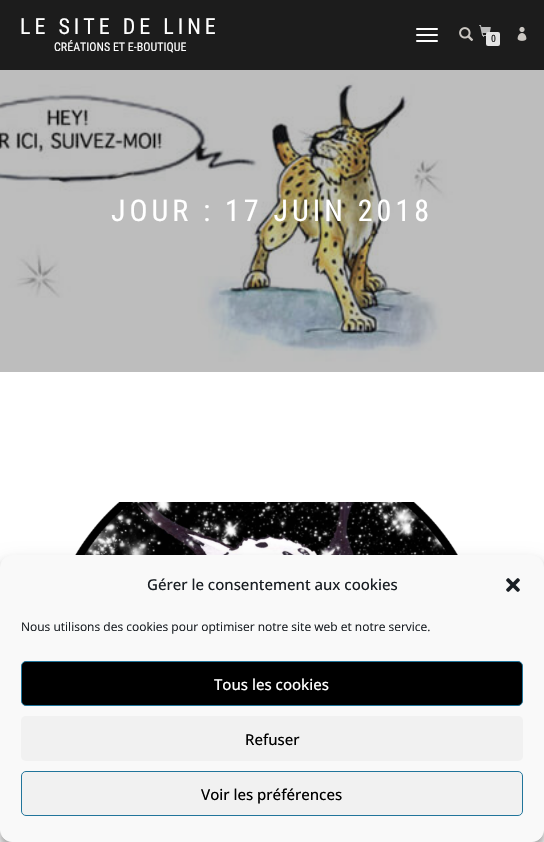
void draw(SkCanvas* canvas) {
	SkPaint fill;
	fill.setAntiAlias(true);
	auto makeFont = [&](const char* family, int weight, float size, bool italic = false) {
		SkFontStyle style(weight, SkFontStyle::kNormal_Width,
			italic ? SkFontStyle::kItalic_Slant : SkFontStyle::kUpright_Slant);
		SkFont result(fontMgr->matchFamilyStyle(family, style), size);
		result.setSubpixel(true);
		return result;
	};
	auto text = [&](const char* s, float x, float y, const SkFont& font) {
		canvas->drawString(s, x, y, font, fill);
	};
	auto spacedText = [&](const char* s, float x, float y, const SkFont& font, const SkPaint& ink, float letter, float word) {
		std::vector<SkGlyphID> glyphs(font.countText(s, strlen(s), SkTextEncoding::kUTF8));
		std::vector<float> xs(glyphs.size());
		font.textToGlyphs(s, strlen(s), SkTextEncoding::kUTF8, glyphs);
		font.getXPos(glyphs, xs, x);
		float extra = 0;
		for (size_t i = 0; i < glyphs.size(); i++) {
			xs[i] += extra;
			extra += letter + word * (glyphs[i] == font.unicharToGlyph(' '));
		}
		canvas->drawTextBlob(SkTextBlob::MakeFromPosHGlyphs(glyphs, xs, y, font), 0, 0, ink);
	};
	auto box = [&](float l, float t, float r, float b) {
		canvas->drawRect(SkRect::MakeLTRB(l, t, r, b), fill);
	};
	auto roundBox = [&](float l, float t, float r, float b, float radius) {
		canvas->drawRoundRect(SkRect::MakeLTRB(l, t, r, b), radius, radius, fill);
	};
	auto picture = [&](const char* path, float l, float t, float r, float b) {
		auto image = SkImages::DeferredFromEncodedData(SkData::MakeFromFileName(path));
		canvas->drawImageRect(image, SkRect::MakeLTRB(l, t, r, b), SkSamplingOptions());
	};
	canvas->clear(0xFFFFFFFF);
	fill.setColor(0xFF1C1C1C);
	box(0, 0, 544, 70);
	fill.setColor(0xFFFFFFFF);
	roundBox(416, 28, 438, 30, 1);
	roundBox(416, 34, 438, 36, 1);
	roundBox(416, 40, 438, 42, 1);
	picture("image0.png", 459, 27, 474, 41);
	picture("image1.png", 479, 25, 491, 37);
	fill.setColor(0xFFE5E5E5);
	roundBox(486, 32, 500, 46, 2);
	picture("image2.png", 517, 26, 527, 41);
	picture("image3.png", 0, 70, 544, 372);
	picture("image4.png", 75, 502, 458, 555);
	fill.setColor(0x3B000000);
	fill.setMaskFilter(SkMaskFilter::MakeBlur(kNormal_SkBlurStyle, 3));
	canvas->drawRoundRect(SkRect::MakeLTRB(0, 561, 544, 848), 12, 12, fill);
	fill.setMaskFilter(nullptr);
	fill.setColor(0x30000000);
	fill.setMaskFilter(SkMaskFilter::MakeBlur(kNormal_SkBlurStyle, 10));
	canvas->drawRoundRect(SkRect::MakeLTRB(0, 565, 544, 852), 12, 12, fill);
	fill.setMaskFilter(nullptr);
	fill.setColor(0xFFF9F9F9);
	canvas->drawRoundRect(SkRect::MakeLTRB(0.5f, 555.5f, 543.5f, 841.5f), 11.5f, 11.5f, fill);
	fill.setStyle(SkPaint::kStroke_Style);
	fill.setStrokeWidth(1);
	canvas->drawRoundRect(SkRect::MakeLTRB(0.5f, 555.5f, 543.5f, 841.5f), 11.5f, 11.5f, fill);
	picture("image5.png", 506, 578, 520, 592);
	fill.setStyle(SkPaint::kFill_Style);
	fill.setColor(0xFF000000);
	canvas->drawRoundRect(SkRect::MakeLTRB(21.5f, 661.5f, 522.5f, 705.5f), 4.5f, 4.5f, fill);
	fill.setStyle(SkPaint::kStroke_Style);
	fill.setColor(0xFF21759B);
	canvas->drawRoundRect(SkRect::MakeLTRB(21.5f, 661.5f, 522.5f, 705.5f), 4.5f, 4.5f, fill);
	fill.setStyle(SkPaint::kFill_Style);
	fill.setColor(0xFFF1F1F1);
	roundBox(21, 716, 523, 761, 5);
	canvas->drawRoundRect(SkRect::MakeLTRB(21.5f, 771.5f, 522.5f, 815.5f), 4.5f, 4.5f, fill);
	fill.setStyle(SkPaint::kStroke_Style);
	fill.setColor(0xFF21759B);
	canvas->drawRoundRect(SkRect::MakeLTRB(21.5f, 771.5f, 522.5f, 815.5f), 4.5f, 4.5f, fill);
	auto font1 = makeFont("Roboto Condensed", 400, 22);
	fill.setStyle(SkPaint::kFill_Style);
	fill.setColor(0xFFFFFFFF);
	spacedText("LE SITE DE LINE", 20, 34, font1, fill, 4, 0);
	auto font2 = makeFont("Roboto Condensed", 400, 12);
	text("CRÉATIONS ET E-BOUTIQUE", 54, 51, font2);
	auto font3 = makeFont("Roboto Condensed", 400, 10);
	fill.setColor(0xFF111111);
	text("0", 491, 42, font3);
	auto font4 = makeFont("Roboto Condensed", 400, 30);
	fill.setColor(0xFFFFFFFF);
	spacedText("JOUR : 17 JUIN 2018", 111, 221, font4, fill, 4, 0);
	auto font5 = makeFont("Open Sans", 500, 15);
	fill.setColor(0xFF191E23);
	text("Gérer le consentement aux cookies", 147, 590, font5);
	auto font6 = makeFont("Open Sans", 400, 12);
	text("Nous utilisons des cookies pour optimiser notre site web et notre service.", 21, 631, font6);
	fill.setColor(0xFFFFFFFF);
	text("Tous les cookies", 214, 690, font5);
	fill.setColor(0xFF000000);
	text("Refuser", 245, 745, font5);
	text("Voir les préférences", 201, 800, font5);
}
